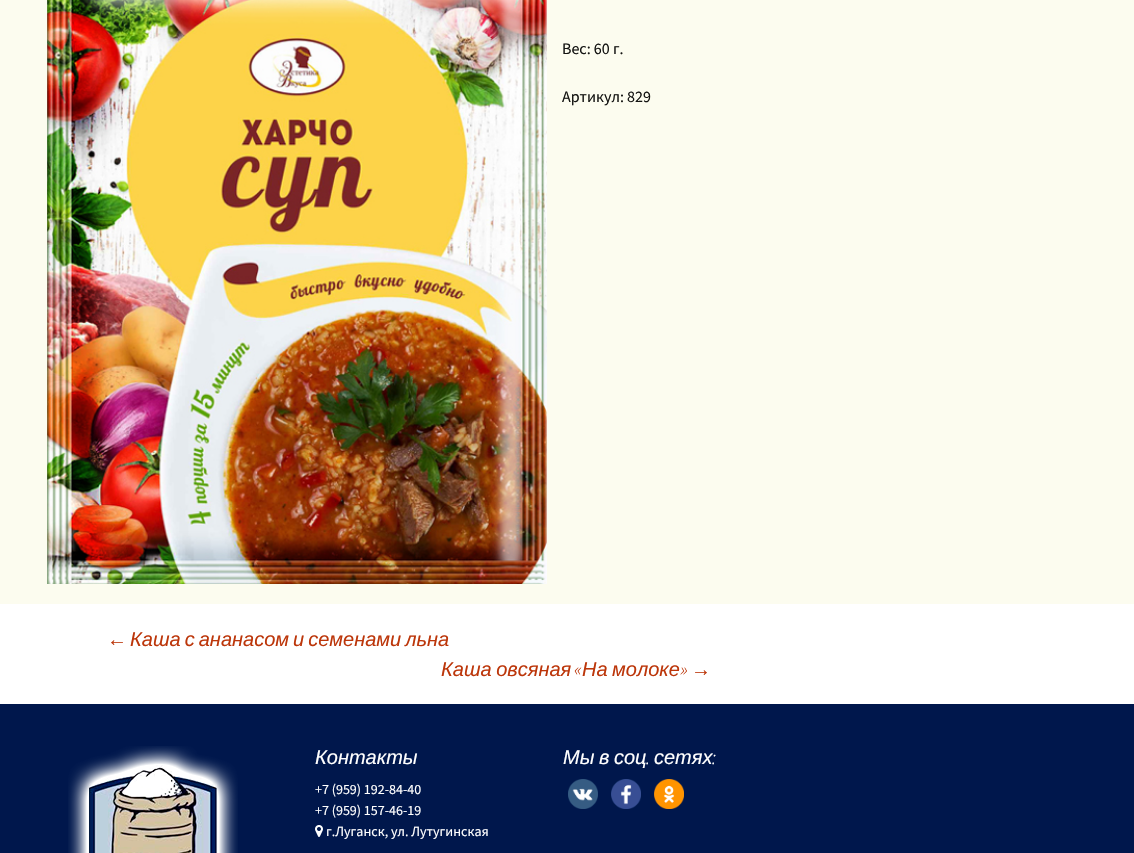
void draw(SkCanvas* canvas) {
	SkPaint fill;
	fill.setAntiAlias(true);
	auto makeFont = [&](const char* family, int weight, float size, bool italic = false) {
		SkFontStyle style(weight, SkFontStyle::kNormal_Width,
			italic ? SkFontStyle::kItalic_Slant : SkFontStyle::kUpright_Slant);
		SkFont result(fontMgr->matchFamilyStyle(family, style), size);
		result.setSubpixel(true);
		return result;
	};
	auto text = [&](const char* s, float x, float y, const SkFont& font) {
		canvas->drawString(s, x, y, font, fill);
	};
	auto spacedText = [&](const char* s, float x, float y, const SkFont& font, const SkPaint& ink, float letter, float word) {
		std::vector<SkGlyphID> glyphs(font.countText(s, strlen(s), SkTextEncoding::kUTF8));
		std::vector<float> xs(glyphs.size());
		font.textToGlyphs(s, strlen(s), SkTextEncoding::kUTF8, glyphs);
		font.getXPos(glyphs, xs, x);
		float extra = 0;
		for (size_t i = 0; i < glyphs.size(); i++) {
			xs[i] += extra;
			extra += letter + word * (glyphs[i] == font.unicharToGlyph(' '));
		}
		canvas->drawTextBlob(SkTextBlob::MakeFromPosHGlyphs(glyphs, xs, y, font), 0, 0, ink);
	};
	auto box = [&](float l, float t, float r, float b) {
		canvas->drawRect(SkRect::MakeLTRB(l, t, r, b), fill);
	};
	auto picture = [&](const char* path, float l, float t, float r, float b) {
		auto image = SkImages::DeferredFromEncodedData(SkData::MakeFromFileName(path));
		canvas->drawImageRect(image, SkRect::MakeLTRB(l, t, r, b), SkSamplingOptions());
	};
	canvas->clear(0xFFFCFCEF);
	picture("image0.png", 47, 0, 547, 584);
	fill.setColor(0xFFFFFFFF);
	box(0, 604, 1134, 704);
	fill.setColor(0xFF00174C);
	box(0, 704, 1134, 853);
	picture("image1.png", 68, 746, 238, 853);
	picture("image2.png", 315, 825, 323, 837);
	picture("image3.png", 568, 779, 598, 809);
	picture("image4.png", 611, 779, 641, 809);
	picture("image5.png", 654, 779, 684, 809);
	auto font1 = makeFont("Source Sans Pro", 400, 16);
	fill.setColor(0xFF141412);
	text("Вес: 60 г.", 562, 54, font1);
	text("Артикул: 829", 562, 102, font1);
	auto font2 = makeFont("Liberation Sans", 400, 20, true);
	fill.setColor(0xFFBC360A);
	text("←", 107, 646, font2);
	spacedText("Каша с ананасом и семенами льна", 130, 646, font2, fill, 0, -1.5f);
	spacedText("Каша овсяная", 441, 676, font2, fill, 0, -1);
	auto font3 = makeFont("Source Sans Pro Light", 300, 20, true);
	text("«", 574, 676, font3);
	spacedText("На молоке", 582, 676, font2, fill, 0, -1);
	text("»", 680, 676, font3);
	text("→", 691, 676, font2);
	fill.setColor(0xFFFFFFFF);
	text("Контакты", 315, 764, font2);
	auto font4 = makeFont("Source Sans Pro", 400, 14);
	text("+7 (959) 192-84-40", 315, 794, font4);
	text("+7 (959) 157-46-19", 315, 815, font4);
	text("г.Луганск, ул. Лутугинская", 326, 836, font4);
	spacedText("Мы в соц", 563, 764, font2, fill, 0, -1);
	text(".", 646, 764, font3);
	text("сетях", 654, 764, font2);
	text(":", 712, 764, font3);
}
